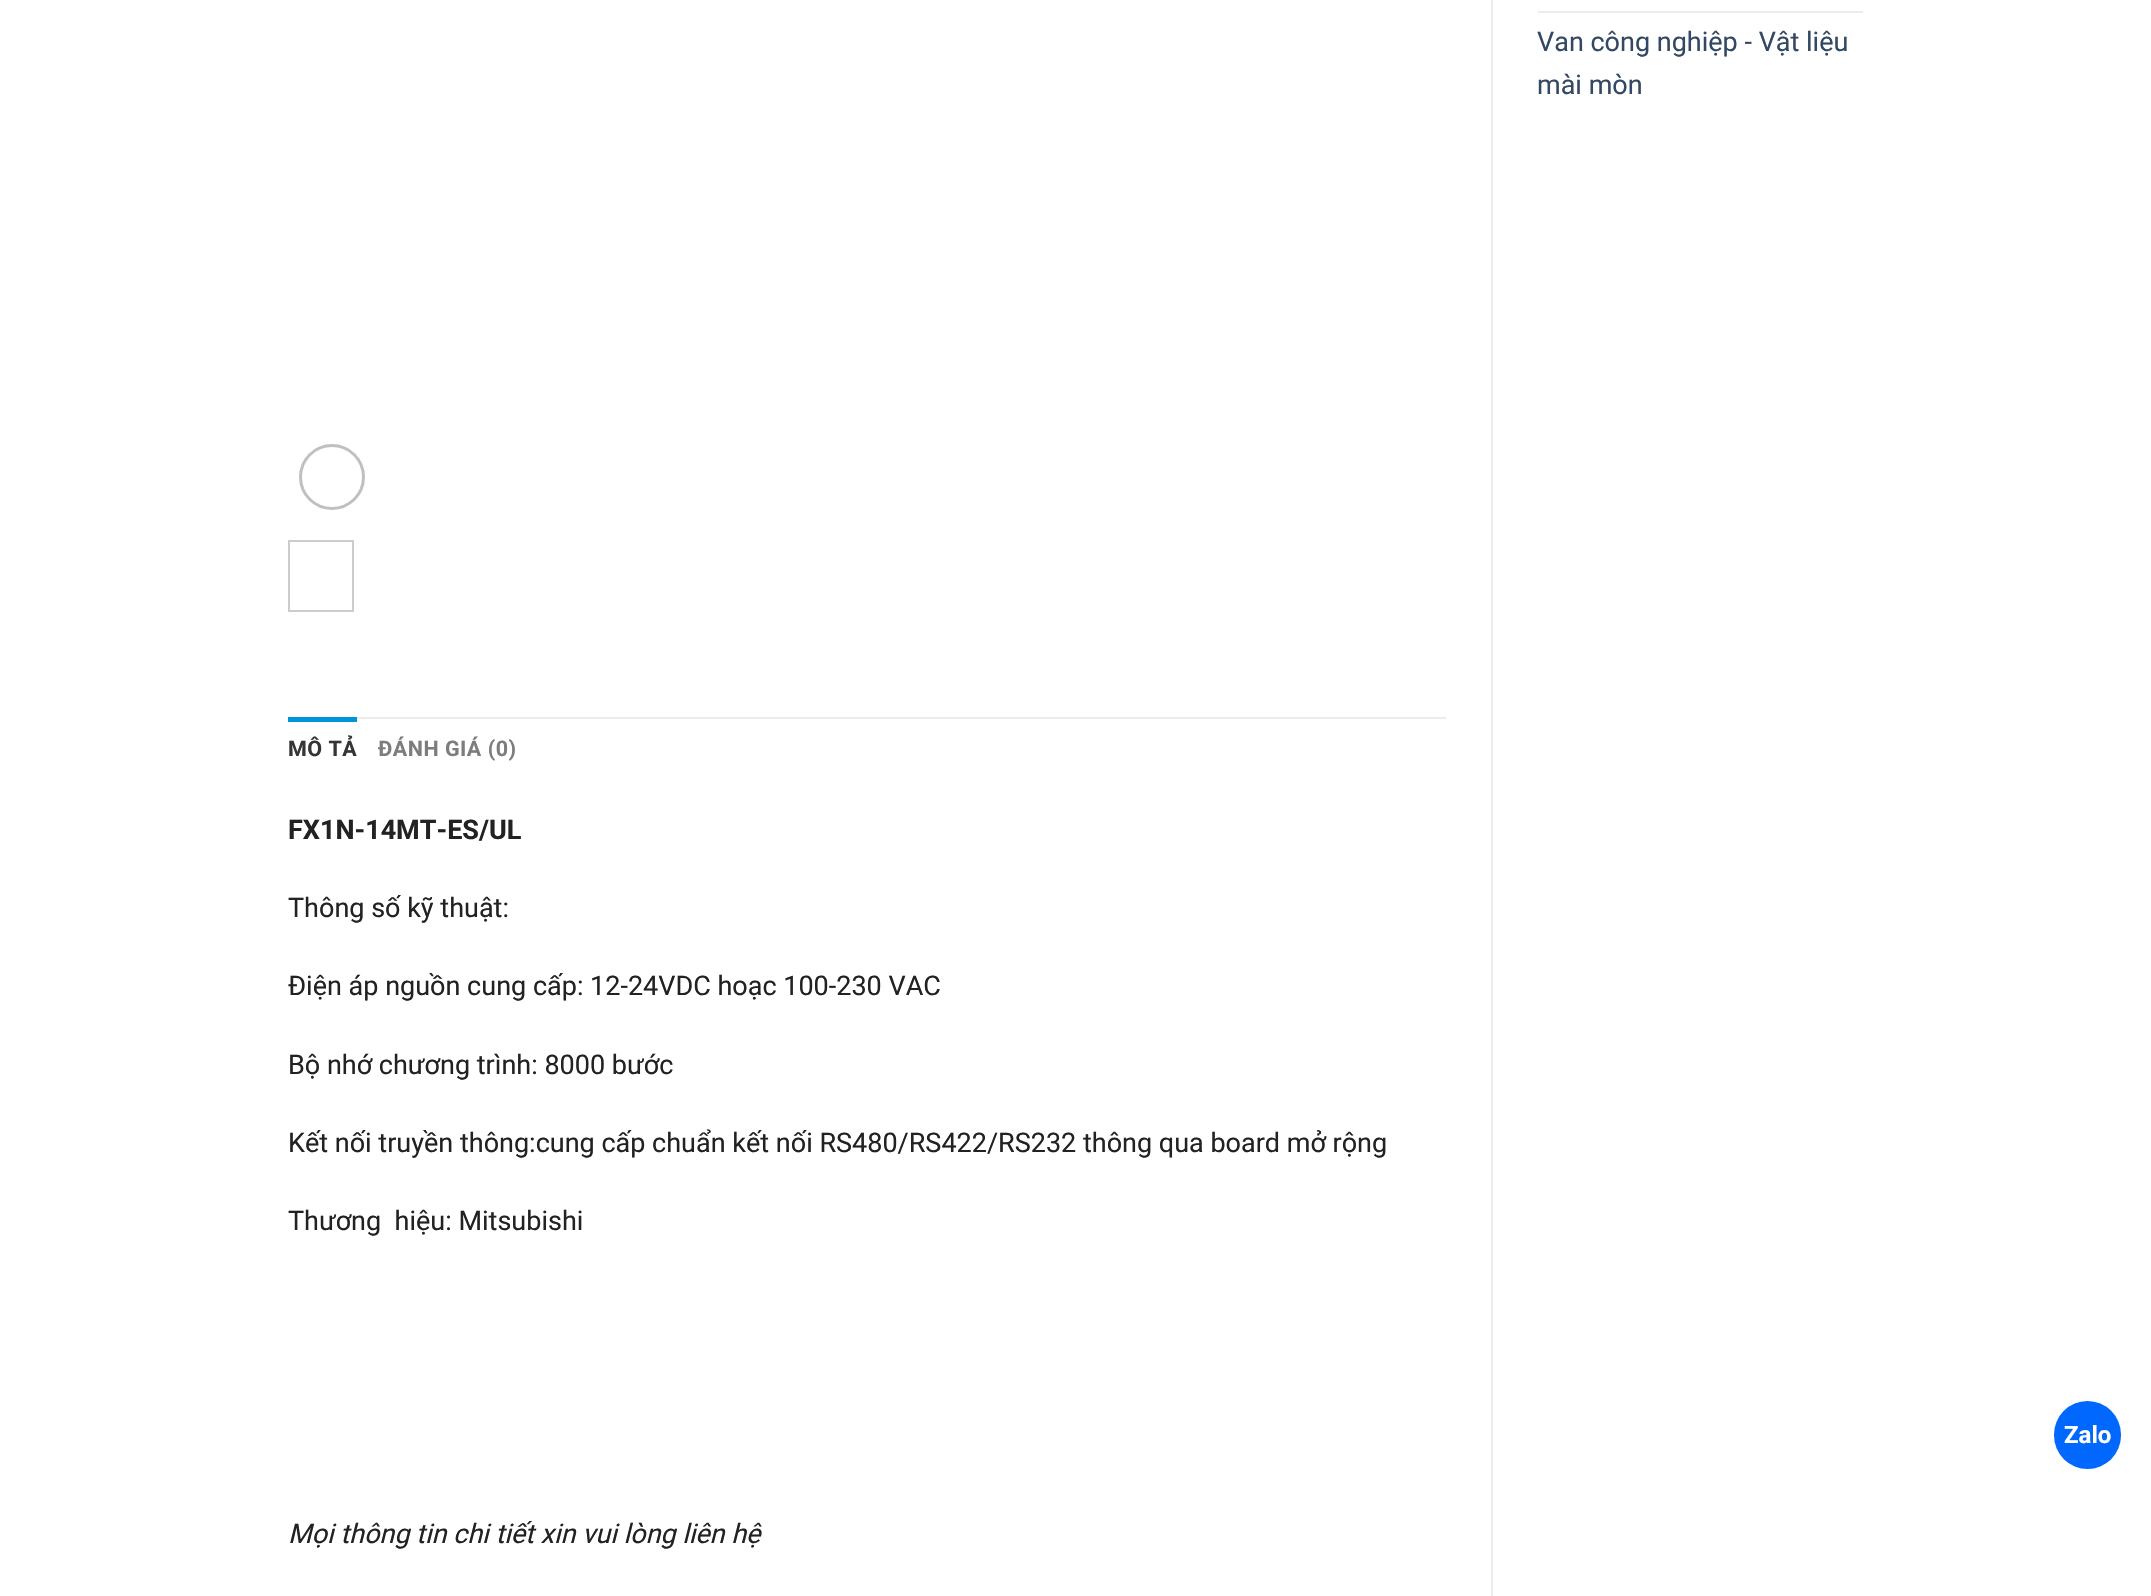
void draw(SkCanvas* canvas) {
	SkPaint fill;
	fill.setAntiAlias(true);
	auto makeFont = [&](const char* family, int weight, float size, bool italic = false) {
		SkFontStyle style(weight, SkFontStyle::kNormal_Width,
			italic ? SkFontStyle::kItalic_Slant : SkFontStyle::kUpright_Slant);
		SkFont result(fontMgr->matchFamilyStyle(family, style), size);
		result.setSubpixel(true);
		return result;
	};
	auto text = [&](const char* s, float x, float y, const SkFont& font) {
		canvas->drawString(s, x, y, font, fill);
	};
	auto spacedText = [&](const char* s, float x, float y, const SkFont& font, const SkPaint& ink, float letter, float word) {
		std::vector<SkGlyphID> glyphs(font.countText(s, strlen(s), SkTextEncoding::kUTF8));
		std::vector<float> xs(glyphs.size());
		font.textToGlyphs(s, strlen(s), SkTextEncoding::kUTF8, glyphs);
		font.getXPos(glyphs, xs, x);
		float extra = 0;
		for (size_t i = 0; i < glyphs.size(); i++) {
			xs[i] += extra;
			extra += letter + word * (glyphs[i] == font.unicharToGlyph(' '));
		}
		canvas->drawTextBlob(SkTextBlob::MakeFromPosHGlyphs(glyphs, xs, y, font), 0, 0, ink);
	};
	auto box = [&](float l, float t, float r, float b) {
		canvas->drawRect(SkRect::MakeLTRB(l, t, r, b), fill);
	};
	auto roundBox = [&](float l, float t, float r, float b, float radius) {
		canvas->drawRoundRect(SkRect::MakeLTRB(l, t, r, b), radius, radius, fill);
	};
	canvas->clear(0xFFFFFFFF);
	fill.setColor(0xFFECECEC);
	box(1538, 11, 1863, 13);
	box(1491, 0, 1493, 1596);
	fill.setStyle(SkPaint::kStroke_Style);
	fill.setStrokeWidth(3);
	fill.setColor(0xFFC0C0C0);
	canvas->drawCircle(332, 477, 31.5f, fill);
	fill.setStrokeWidth(2);
	fill.setColor(0xFFCCCCCC);
	canvas->drawRect(SkRect::MakeLTRB(289, 541, 353, 611), fill);
	fill.setStyle(SkPaint::kFill_Style);
	fill.setColor(0xFFECECEC);
	box(357, 717, 1446, 719);
	fill.setColor(0xFF0094D9);
	box(288, 717, 357, 722);
	fill.setColor(0xFF0068FF);
	roundBox(2054, 1401, 2121, 1469, 33.5f);
	auto font1 = makeFont("Roboto", 400, 27);
	fill.setColor(0xFF334862);
	text("Van công nghiệp - Vật liệu", 1537, 51, font1);
	text("mài mòn", 1537, 94, font1);
	auto font2 = makeFont("Roboto", 700, 21.5f);
	fill.setColor(0xFF353535);
	spacedText("MÔ TẢ", 288, 756, font2, fill, 0.5f, 0);
	fill.setColor(0xFF7D7D7D);
	spacedText("ĐÁNH GIÁ (0)", 378, 756, font2, fill, 0.5f, 0);
	auto font3 = makeFont("Roboto", 700, 27);
	fill.setColor(0xFF222222);
	text("FX1N-14MT-ES/UL", 288, 839, font3);
	text("Thông số kỹ thuật:", 288, 917, font1);
	text("Điện áp nguồn cung cấp: 12-24VDC hoạc 100-230 VAC", 288, 995, font1);
	text("Bộ nhớ chương trình: 8000 bước", 288, 1074, font1);
	text("Kết nối truyền thông:cung cấp chuẩn kết nối RS480/RS422/RS232 thông qua board mở rộng", 288, 1152, font1);
	text("Thương  hiệu: Mitsubishi", 288, 1230, font1);
	auto font4 = makeFont("Roboto", 400, 27, true);
	text("Mọi thông tin chi tiết xin vui lòng liên hệ", 288, 1543, font4);
	auto font5 = makeFont("Roboto", 700, 24);
	fill.setColor(0xFFFFFFFF);
	text("Zalo", 2064, 1443, font5);
}
